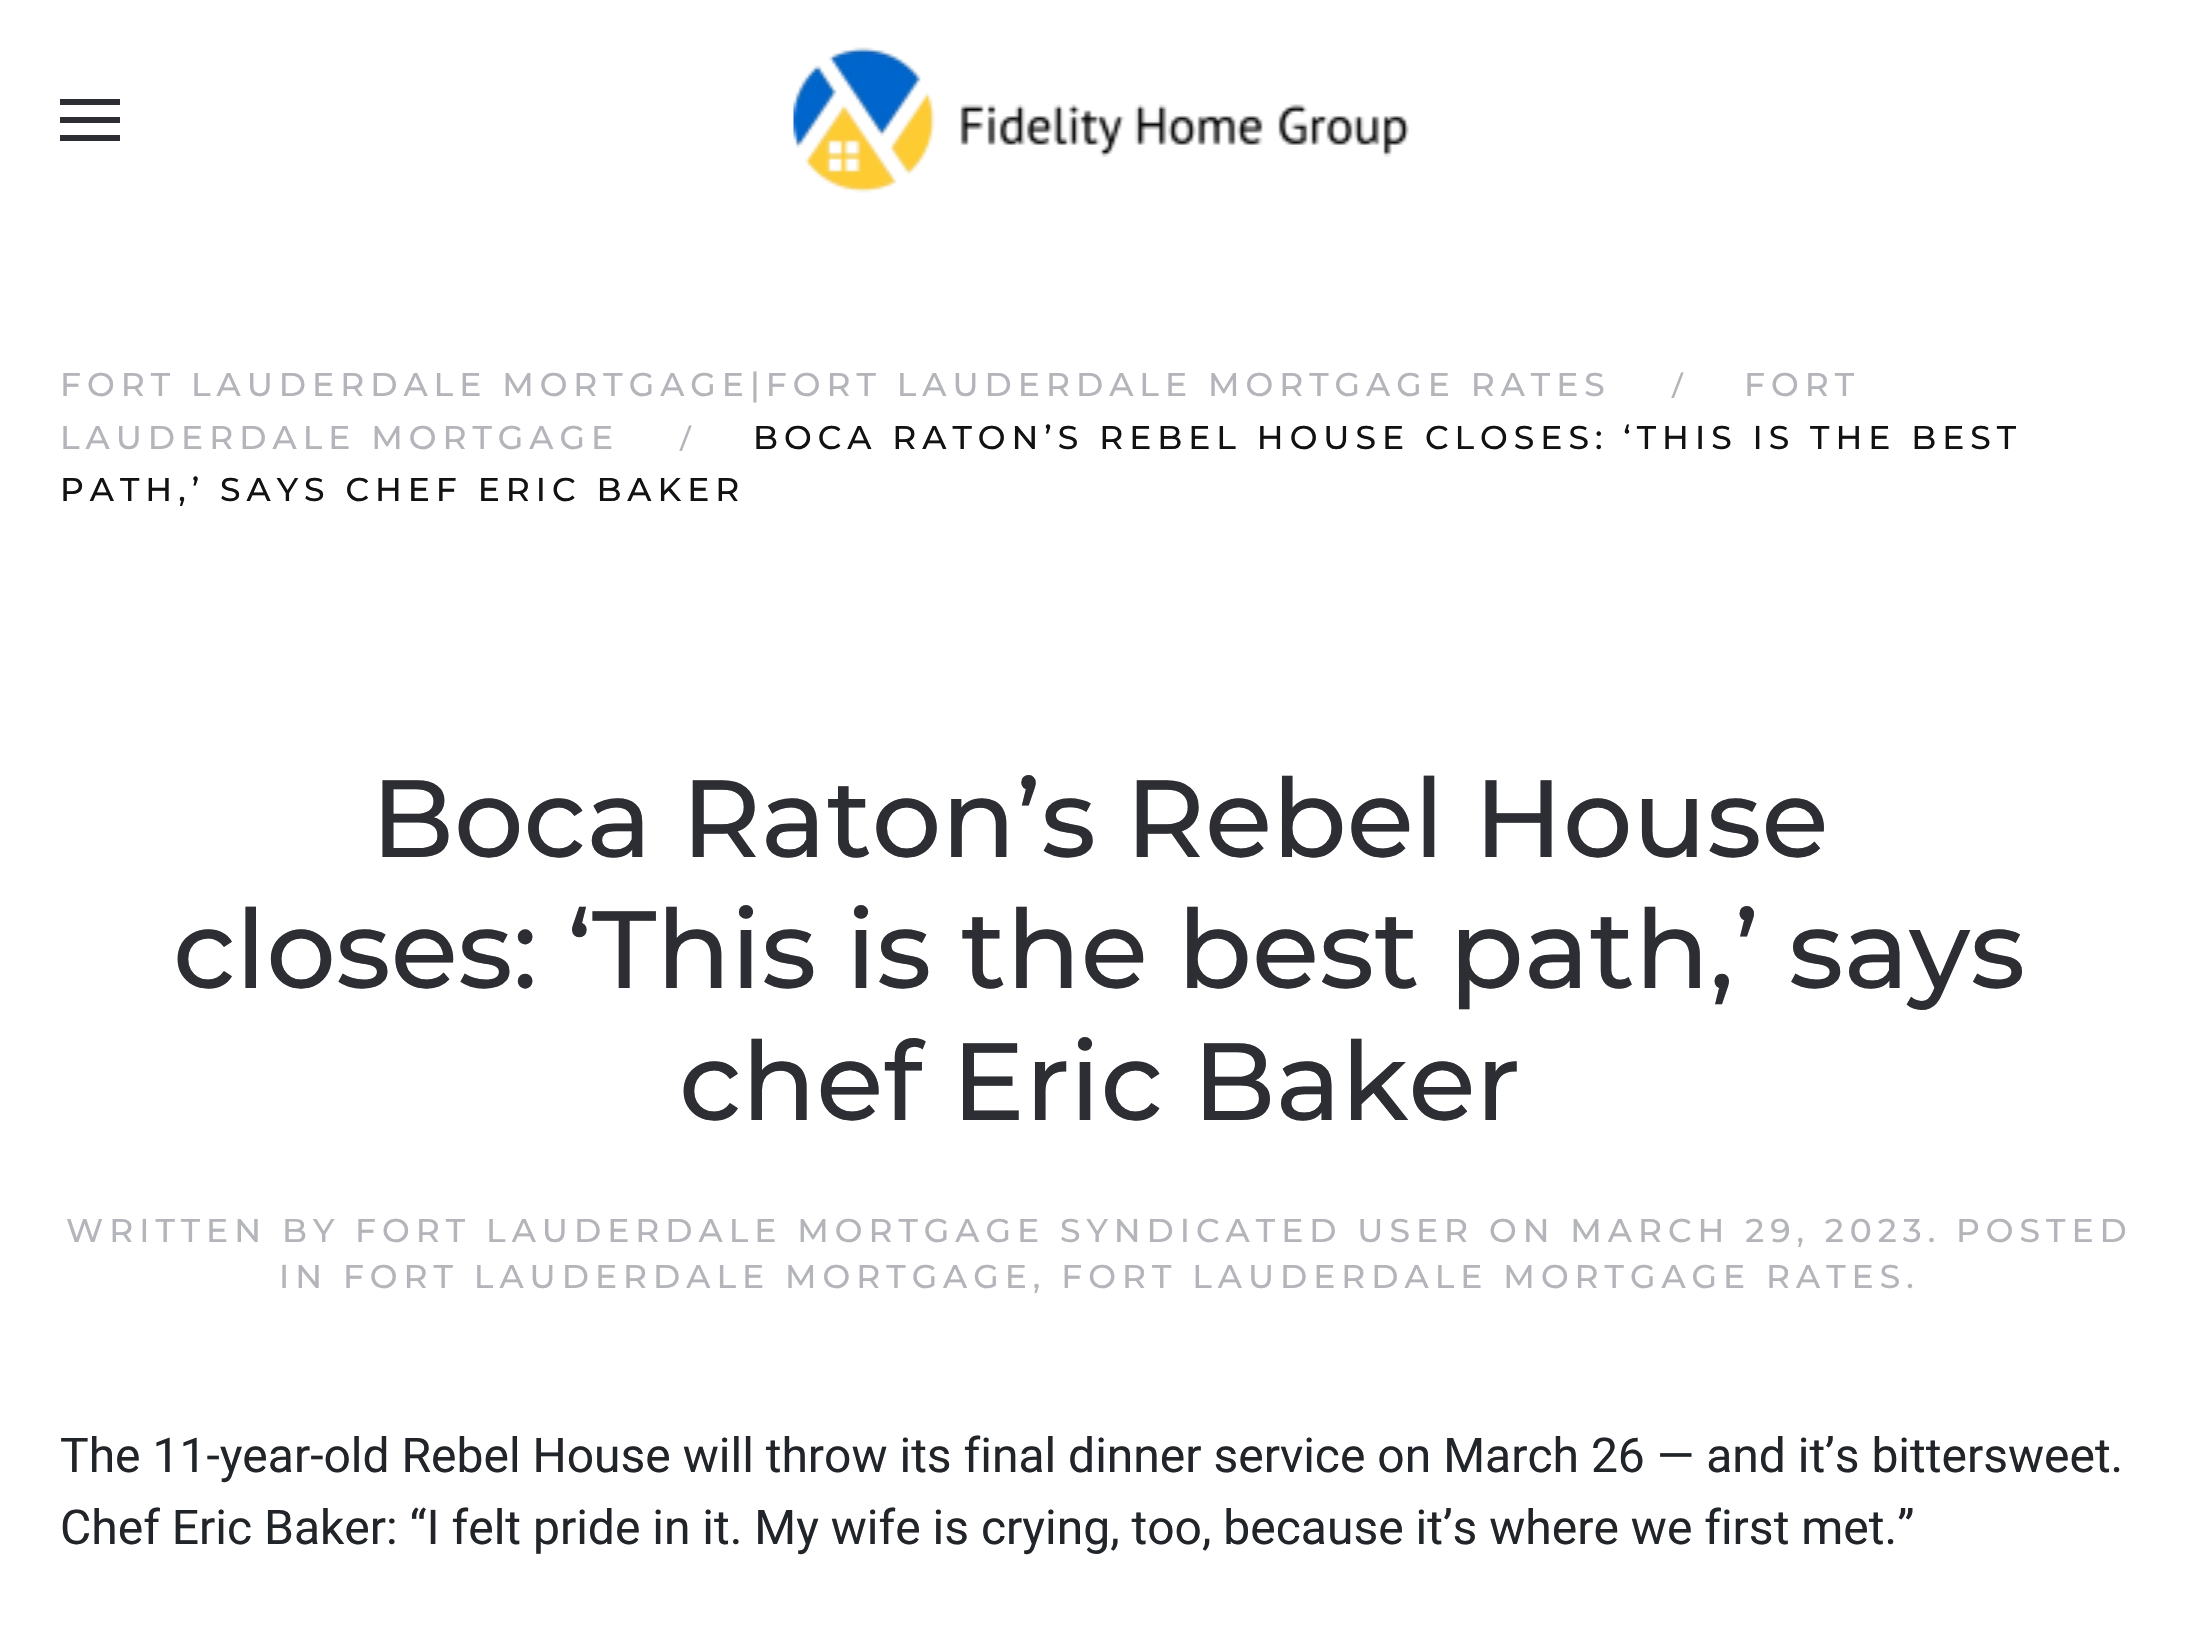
void draw(SkCanvas* canvas) {
	SkPaint fill;
	fill.setAntiAlias(true);
	auto makeFont = [&](const char* family, int weight, float size, bool italic = false) {
		SkFontStyle style(weight, SkFontStyle::kNormal_Width,
			italic ? SkFontStyle::kItalic_Slant : SkFontStyle::kUpright_Slant);
		SkFont result(fontMgr->matchFamilyStyle(family, style), size);
		result.setSubpixel(true);
		return result;
	};
	auto text = [&](const char* s, float x, float y, const SkFont& font) {
		canvas->drawString(s, x, y, font, fill);
	};
	auto spacedText = [&](const char* s, float x, float y, const SkFont& font, const SkPaint& ink, float letter, float word) {
		std::vector<SkGlyphID> glyphs(font.countText(s, strlen(s), SkTextEncoding::kUTF8));
		std::vector<float> xs(glyphs.size());
		font.textToGlyphs(s, strlen(s), SkTextEncoding::kUTF8, glyphs);
		font.getXPos(glyphs, xs, x);
		float extra = 0;
		for (size_t i = 0; i < glyphs.size(); i++) {
			xs[i] += extra;
			extra += letter + word * (glyphs[i] == font.unicharToGlyph(' '));
		}
		canvas->drawTextBlob(SkTextBlob::MakeFromPosHGlyphs(glyphs, xs, y, font), 0, 0, ink);
	};
	auto box = [&](float l, float t, float r, float b) {
		canvas->drawRect(SkRect::MakeLTRB(l, t, r, b), fill);
	};
	auto picture = [&](const char* path, float l, float t, float r, float b) {
		auto image = SkImages::DeferredFromEncodedData(SkData::MakeFromFileName(path));
		canvas->drawImageRect(image, SkRect::MakeLTRB(l, t, r, b), SkSamplingOptions());
	};
	canvas->clear(0xFFFFFFFF);
	fill.setColor(0xFF2D2E33);
	box(60, 99, 120, 105);
	box(60, 117, 120, 123);
	box(60, 135, 120, 141);
	picture("image0.png", 793, 47, 1409, 193);
	auto font1 = makeFont("Montserrat", 100, 33);
	fill.setColor(0xFFB4B5BA);
	spacedText("FORT LAUDERDALE MORTGAGE|FORT LAUDERDALE MORTGAGE RATES", 60, 396, font1, fill, 6, 0);
	auto font2 = makeFont("Roboto", 400, 33);
	text("/", 1671, 396, font2);
	spacedText("FORT", 1744, 396, font1, fill, 6, 0);
	spacedText("LAUDERDALE MORTGAGE", 60, 449, font1, fill, 6, 0);
	text("/", 679, 449, font2);
	fill.setColor(0xFF121212);
	spacedText("BOCA RATON’S REBEL HOUSE CLOSES: ‘THIS IS THE BEST", 753, 449, font1, fill, 6, 0);
	spacedText("PATH,’ SAYS CHEF ERIC BAKER", 60, 501, font1, fill, 6, 0);
	auto font3 = makeFont("Montserrat", 100, 109.6f);
	fill.setColor(0xFF2D2E33);
	text("Boca Raton’s Rebel House", 371, 857, font3);
	text("closes: ‘This is the best path,’ says", 173, 988, font3);
	text("chef Eric Baker", 679, 1120, font3);
	fill.setColor(0xFFB4B5BA);
	spacedText("WRITTEN BY FORT LAUDERDALE MORTGAGE SYNDICATED USER ON MARCH 29, 2023. POSTED", 66, 1242, font1, fill, 6, 0);
	spacedText("IN FORT LAUDERDALE MORTGAGE, FORT LAUDERDALE MORTGAGE RATES.", 279, 1288, font1, fill, 6, 0);
	auto font4 = makeFont("Roboto", 400, 48);
	fill.setColor(0xFF212529);
	text("The 11-year-old Rebel House will throw its final dinner service on March 26 — and it’s bittersweet.", 60, 1472, font4);
	text("Chef Eric Baker: “I felt pride in it. My wife is crying, too, because it’s where we first met.”", 60, 1544, font4);
}
